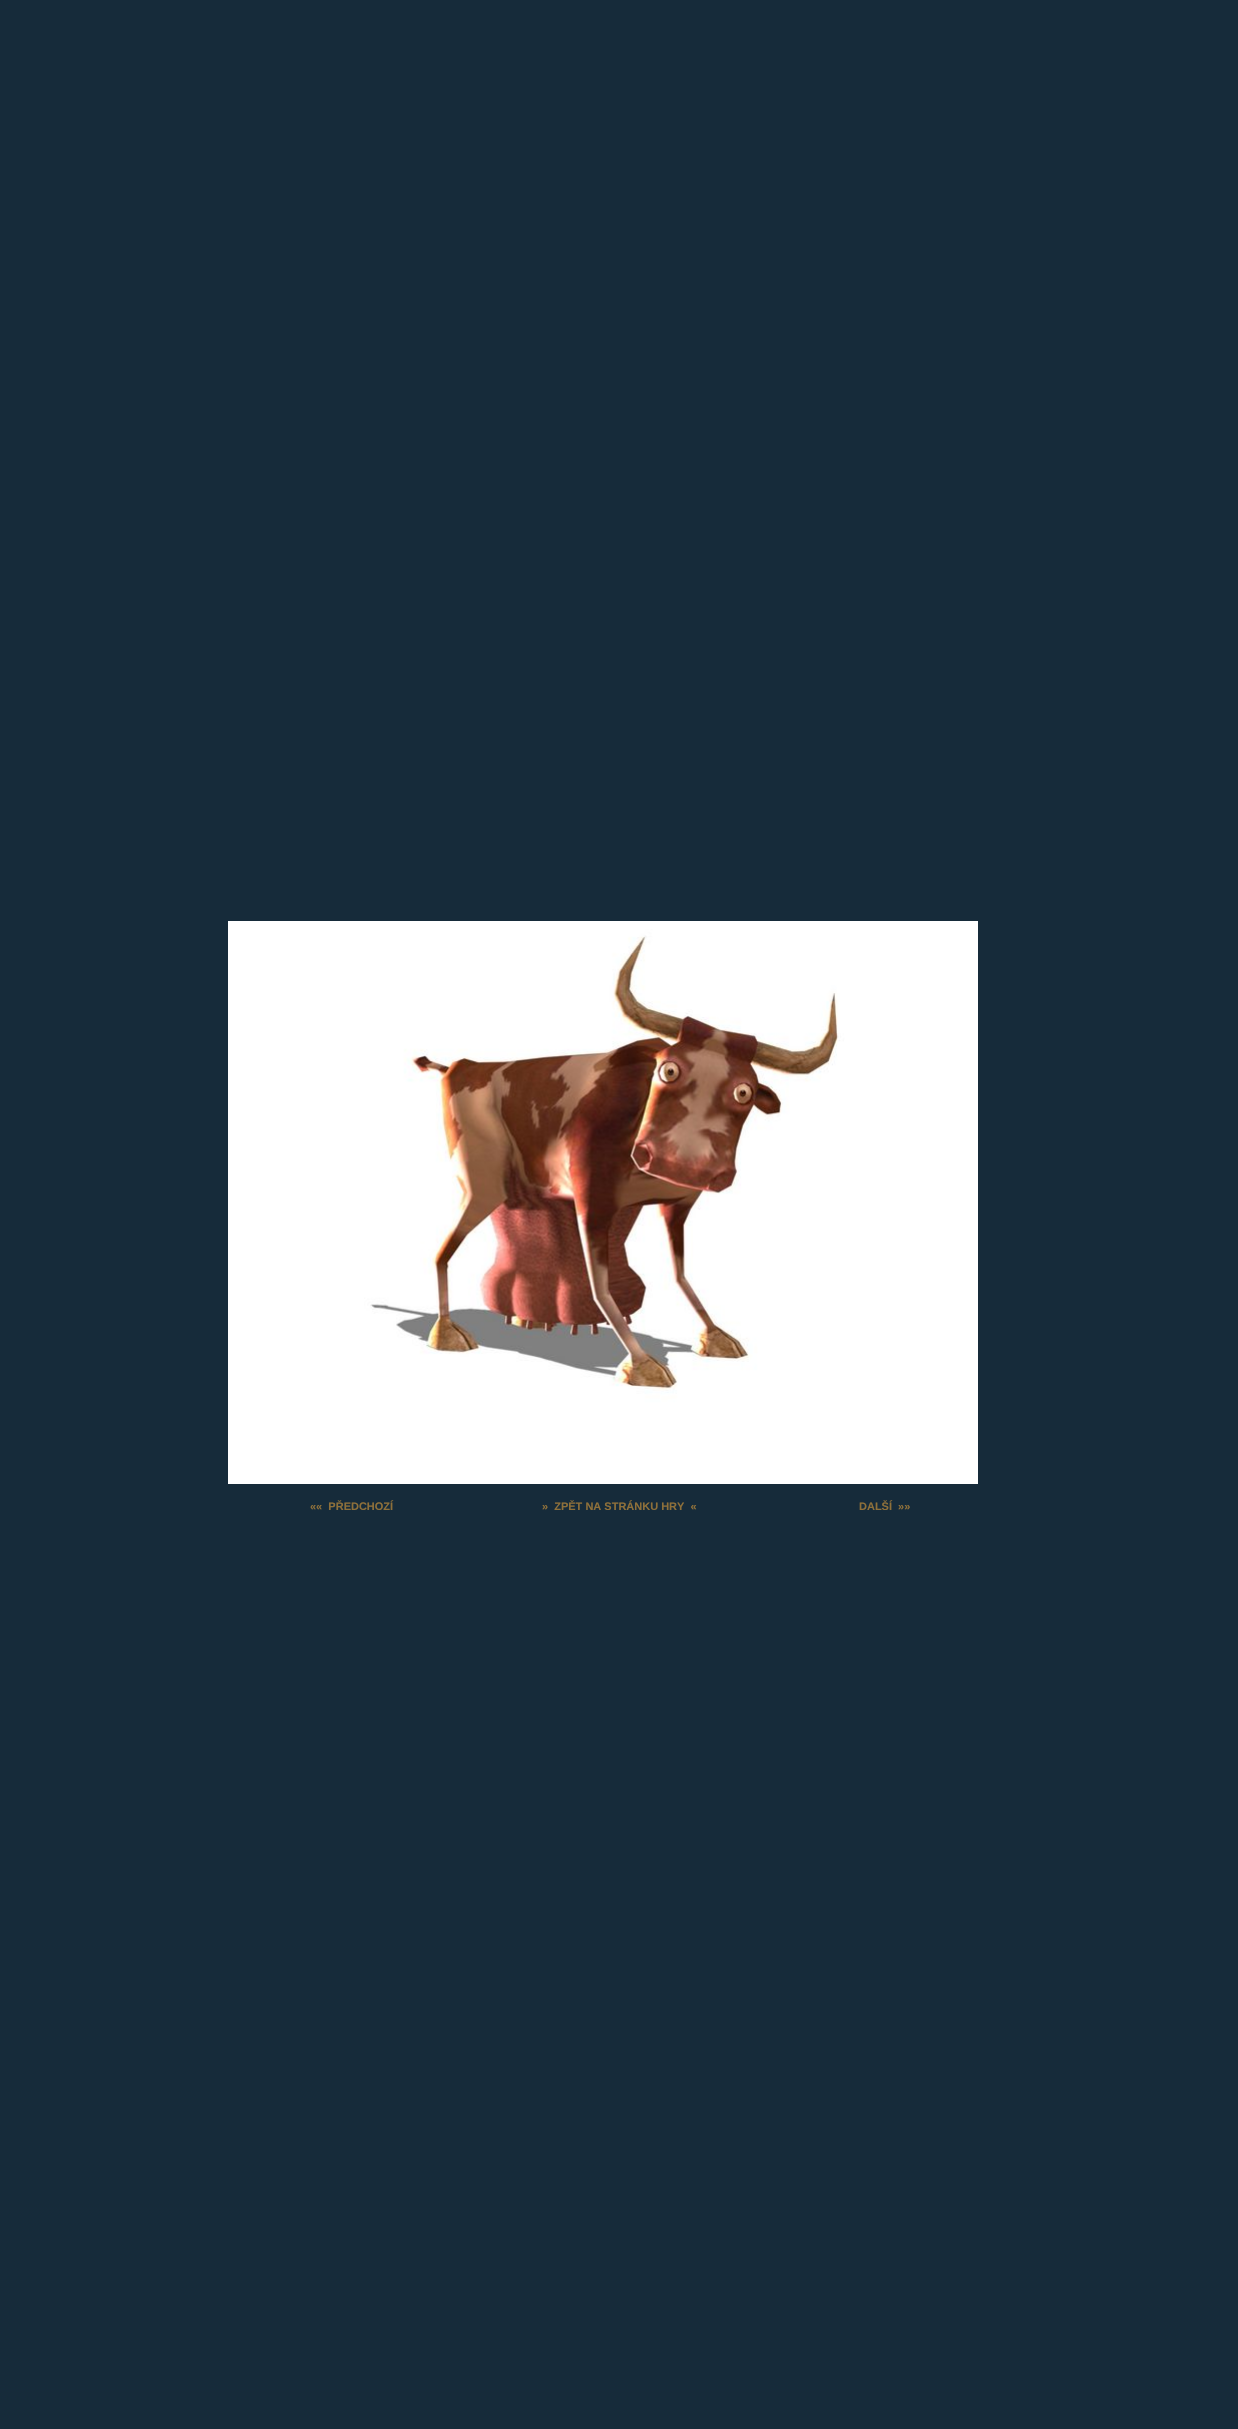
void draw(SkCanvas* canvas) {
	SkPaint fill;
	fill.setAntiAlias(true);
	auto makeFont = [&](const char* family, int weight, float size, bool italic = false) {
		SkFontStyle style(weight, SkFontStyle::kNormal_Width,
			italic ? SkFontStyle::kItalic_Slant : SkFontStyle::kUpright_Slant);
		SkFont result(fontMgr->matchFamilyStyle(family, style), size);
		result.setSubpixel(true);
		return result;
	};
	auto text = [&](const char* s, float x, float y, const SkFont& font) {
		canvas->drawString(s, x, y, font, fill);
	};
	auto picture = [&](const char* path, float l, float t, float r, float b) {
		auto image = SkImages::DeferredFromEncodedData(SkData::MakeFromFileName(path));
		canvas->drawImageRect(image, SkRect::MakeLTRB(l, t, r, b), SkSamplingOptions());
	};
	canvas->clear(0xFF162B3A);
	picture("image0.png", 228, 921, 978, 1484);
	auto font1 = makeFont("Liberation Sans", 700, 11);
	fill.setColor(0xFF8E703A);
	text("««  PŘEDCHOZÍ", 310, 1510, font1);
	text("»  ZPĚT NA STRÁNKU HRY  «", 542, 1510, font1);
	text("DALŠÍ  »»", 859, 1510, font1);
}
